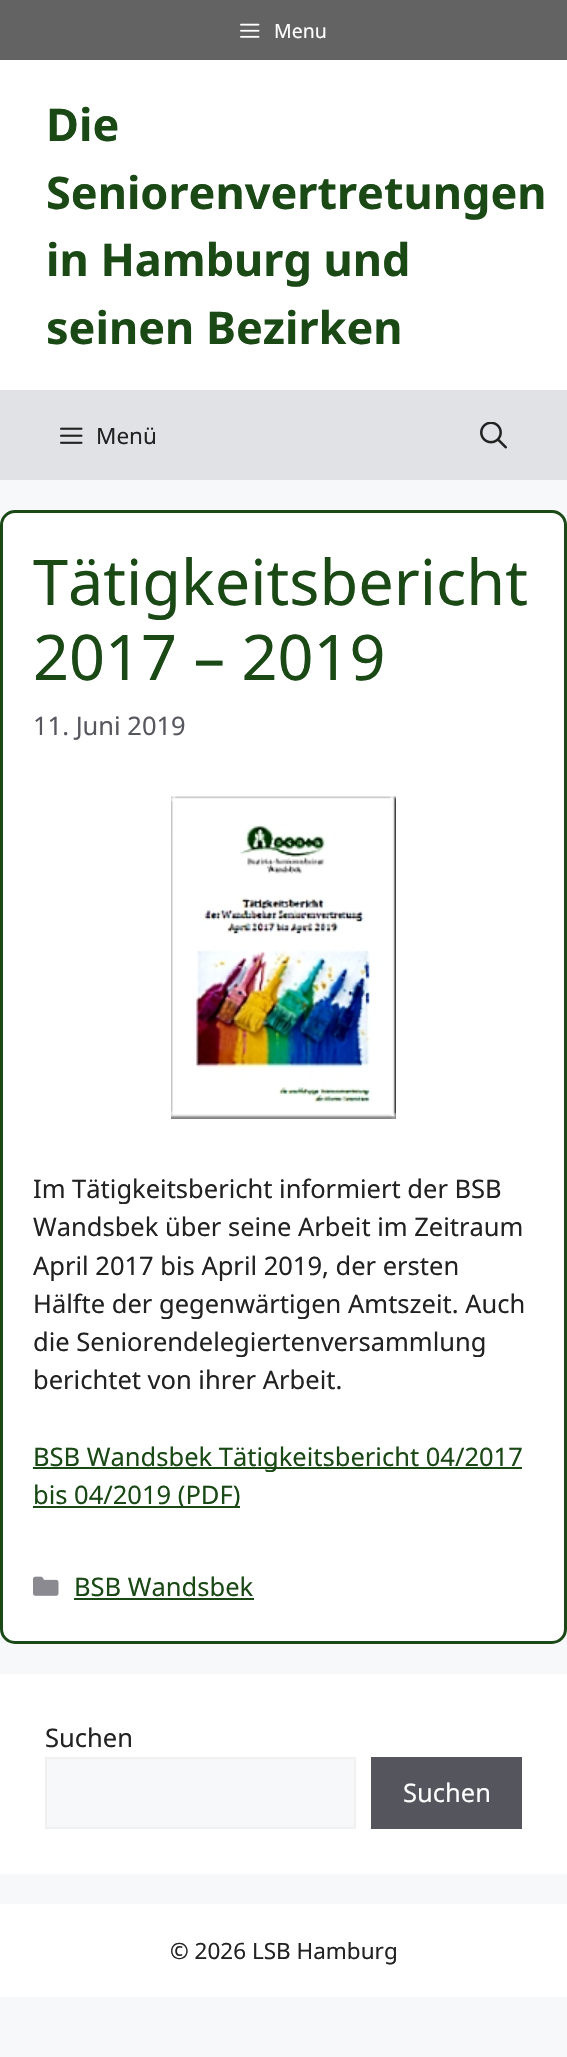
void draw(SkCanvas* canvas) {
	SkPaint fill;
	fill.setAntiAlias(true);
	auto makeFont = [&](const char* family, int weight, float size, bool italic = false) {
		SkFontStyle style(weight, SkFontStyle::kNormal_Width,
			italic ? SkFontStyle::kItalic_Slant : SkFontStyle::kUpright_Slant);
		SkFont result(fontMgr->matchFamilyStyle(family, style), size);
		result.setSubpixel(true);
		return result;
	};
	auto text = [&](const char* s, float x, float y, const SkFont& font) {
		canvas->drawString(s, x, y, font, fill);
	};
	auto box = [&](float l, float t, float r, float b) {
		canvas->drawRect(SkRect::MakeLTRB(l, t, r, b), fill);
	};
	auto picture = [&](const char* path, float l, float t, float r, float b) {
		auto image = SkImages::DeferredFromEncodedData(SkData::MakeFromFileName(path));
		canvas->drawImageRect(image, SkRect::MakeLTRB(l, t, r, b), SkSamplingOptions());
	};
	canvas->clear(0xFFF7F8F9);
	fill.setColor(0xFF636363);
	box(0, 0, 567, 60);
	picture("image0.png", 240, 23, 260, 38);
	fill.setColor(0xFFFFFFFF);
	box(0, 60, 567, 390);
	fill.setColor(0xFFE1E2E6);
	box(0, 390, 567, 480);
	picture("image1.png", 60, 427, 83, 444);
	picture("image2.png", 480, 422, 507, 449);
	fill.setColor(0xFFFFFFFF);
	canvas->drawRoundRect(SkRect::MakeLTRB(1.5f, 511.5f, 565.5f, 1642.5f), 13.5f, 13.5f, fill);
	fill.setStyle(SkPaint::kStroke_Style);
	fill.setStrokeWidth(3);
	fill.setColor(0xFF1A4916);
	canvas->drawRoundRect(SkRect::MakeLTRB(1.5f, 511.5f, 565.5f, 1642.5f), 13.5f, 13.5f, fill);
	picture("image3.png", 171, 796, 396, 1119);
	fill.setStyle(SkPaint::kFill_Style);
	box(33, 1467, 522, 1469);
	box(33, 1506, 240, 1508);
	picture("image4.png", 33, 1576, 59, 1596);
	box(74, 1598, 254, 1600);
	fill.setColor(0xFFFFFFFF);
	box(0, 1674, 567, 1874);
	fill.setColor(0xFFF7F8F9);
	canvas->drawRect(SkRect::MakeLTRB(46, 1758, 355, 1828), fill);
	fill.setStyle(SkPaint::kStroke_Style);
	fill.setStrokeWidth(2);
	fill.setColor(0xFFF0F0F0);
	canvas->drawRect(SkRect::MakeLTRB(46, 1758, 355, 1828), fill);
	fill.setStyle(SkPaint::kFill_Style);
	fill.setColor(0xFF55555E);
	box(371, 1757, 522, 1829);
	fill.setColor(0xFFFFFFFF);
	box(0, 1904, 567, 1997);
	auto font1 = makeFont("Noto Sans", 400, 19.5f);
	text("Menu", 274, 38, font1);
	auto font2 = makeFont("Noto Sans", 700, 45);
	fill.setColor(0xFF1A4916);
	text("Die", 46, 141, font2);
	text("Seniorenvertretungen", 46, 209, font2);
	text("in Hamburg und", 46, 276, font2);
	text("seinen Bezirken", 46, 344, font2);
	auto font3 = makeFont("Noto Sans", 400, 22.5f);
	fill.setColor(0xFF222222);
	text("Menü", 96, 444, font3);
	auto font4 = makeFont("Noto Sans", 400, 63);
	fill.setColor(0xFF1A4916);
	text("Tätigkeitsbericht", 33, 605, font4);
	text("2017 – 2019", 33, 680, font4);
	auto font5 = makeFont("Noto Sans", 400, 25.5f);
	fill.setColor(0xFF575760);
	text("11. Juni 2019", 33, 735, font5);
	fill.setColor(0xFF222222);
	text("Im Tätigkeitsbericht informiert der BSB", 33, 1198, font5);
	text("Wandsbek über seine Arbeit im Zeitraum", 33, 1236, font5);
	text("April 2017 bis April 2019, der ersten", 33, 1275, font5);
	text("Hälfte der gegenwärtigen Amtszeit. Auch", 33, 1313, font5);
	text("die Seniorendelegiertenversammlung", 33, 1351, font5);
	text("berichtet von ihrer Arbeit.", 33, 1389, font5);
	fill.setColor(0xFF1A4916);
	text("BSB Wandsbek Tätigkeitsbericht 04/2017", 33, 1466, font5);
	text("bis 04/2019 (PDF)", 33, 1504, font5);
	text("BSB Wandsbek", 74, 1596, font5);
	fill.setColor(0xFF222222);
	text("Suchen", 45, 1747, font5);
	fill.setColor(0xFFFFFFFF);
	text("Suchen", 403, 1802, font5);
	fill.setColor(0xFF222222);
	text("© 2026 LSB Hamburg", 170, 1959, font3);
}
